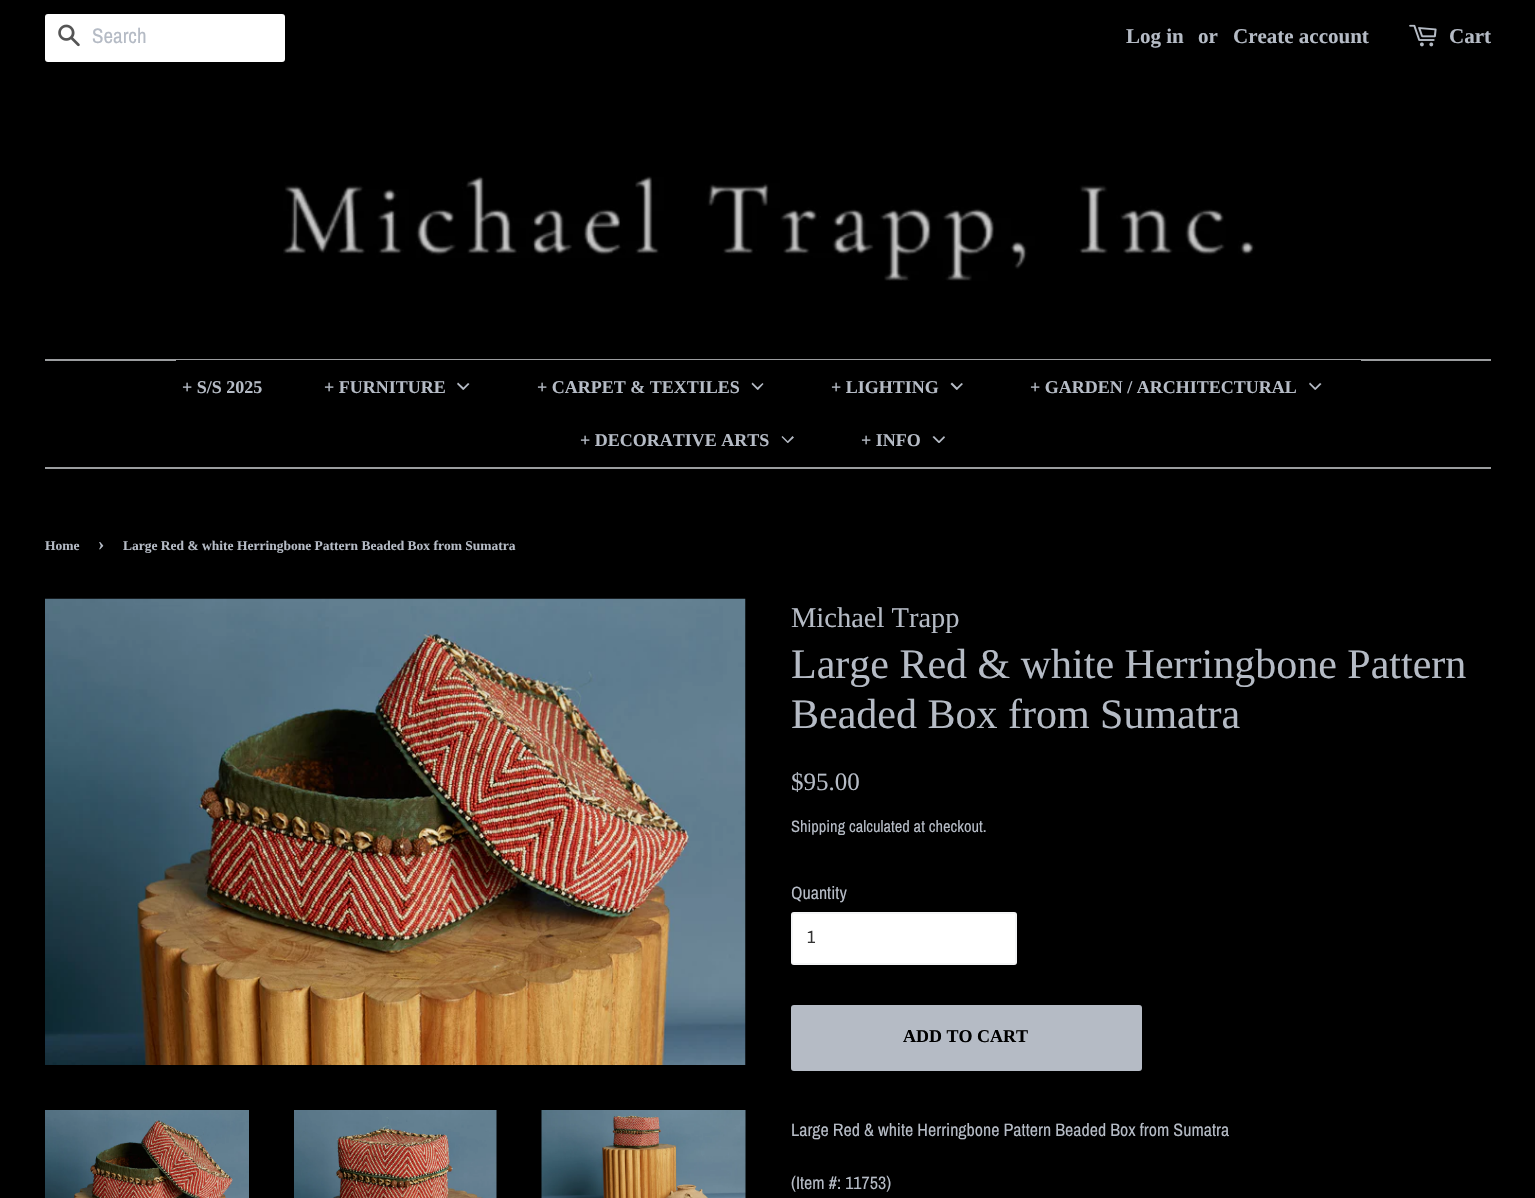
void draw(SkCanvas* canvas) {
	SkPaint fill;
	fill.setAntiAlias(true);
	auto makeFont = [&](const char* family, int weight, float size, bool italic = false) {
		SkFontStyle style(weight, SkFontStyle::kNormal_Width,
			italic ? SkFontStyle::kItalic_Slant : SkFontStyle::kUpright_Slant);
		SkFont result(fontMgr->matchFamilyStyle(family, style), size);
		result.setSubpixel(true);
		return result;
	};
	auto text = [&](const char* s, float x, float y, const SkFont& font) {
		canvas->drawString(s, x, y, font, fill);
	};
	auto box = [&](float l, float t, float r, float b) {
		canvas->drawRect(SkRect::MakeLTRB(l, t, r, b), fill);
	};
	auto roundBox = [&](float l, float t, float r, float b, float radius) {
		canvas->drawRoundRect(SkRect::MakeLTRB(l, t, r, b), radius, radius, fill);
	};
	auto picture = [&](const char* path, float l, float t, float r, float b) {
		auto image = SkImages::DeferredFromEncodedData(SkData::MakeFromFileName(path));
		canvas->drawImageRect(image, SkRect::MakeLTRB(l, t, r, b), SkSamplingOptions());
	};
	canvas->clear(0xFF000000);
	fill.setColor(0xFFFFFFFF);
	roundBox(45, 14, 285, 62, 3);
	picture("image0.png", 58, 24, 80, 47);
	picture("image1.png", 1409, 24, 1437, 47);
	picture("image2.png", 283, 176, 1255, 281);
	fill.setColor(0xFF9B9D9F);
	box(45, 359, 1491, 361);
	box(45, 467, 1491, 469);
	fill.setColor(0xFF000000);
	box(176, 360, 1361, 361);
	fill.setColor(0xFFB5BBC5);
	canvas->drawPath(SkPathBuilder().moveTo(468, 383).lineTo(469.5f, 384).lineTo(463.5f, 390).lineTo(462.5f, 388.5f).close().detach(), fill);
	canvas->drawPath(SkPathBuilder().moveTo(458, 382.5f).lineTo(464.5f, 388.5f).lineTo(463, 390).lineTo(457, 384).close().detach(), fill);
	canvas->drawPath(SkPathBuilder().moveTo(762.5f, 383).lineTo(763.5f, 384).lineTo(758, 390).lineTo(756.5f, 388.5f).close().detach(), fill);
	canvas->drawPath(SkPathBuilder().moveTo(752.5f, 382.5f).lineTo(758.5f, 388.5f).lineTo(757.5f, 390).lineTo(751.5f, 384).close().detach(), fill);
	canvas->drawPath(SkPathBuilder().moveTo(961.5f, 383).lineTo(963, 384).lineTo(957, 390).lineTo(956, 388.5f).close().detach(), fill);
	canvas->drawPath(SkPathBuilder().moveTo(952, 382.5f).lineTo(958, 388.5f).lineTo(956.5f, 390).lineTo(950.5f, 384).close().detach(), fill);
	canvas->drawPath(SkPathBuilder().moveTo(1320, 383).lineTo(1321.5f, 384).lineTo(1315.5f, 390).lineTo(1314.5f, 388.5f).close().detach(), fill);
	canvas->drawPath(SkPathBuilder().moveTo(1310, 382.5f).lineTo(1316, 388.5f).lineTo(1315, 390).lineTo(1309, 384).close().detach(), fill);
	canvas->drawPath(SkPathBuilder().moveTo(792.5f, 436).lineTo(794, 437.5f).lineTo(788, 443).lineTo(787, 442).close().detach(), fill);
	canvas->drawPath(SkPathBuilder().moveTo(782.5f, 436).lineTo(788.5f, 442).lineTo(787.5f, 443).lineTo(781.5f, 437).close().detach(), fill);
	canvas->drawPath(SkPathBuilder().moveTo(944, 436).lineTo(945, 437.5f).lineTo(939.5f, 443).lineTo(938, 442).close().detach(), fill);
	canvas->drawPath(SkPathBuilder().moveTo(934, 436).lineTo(940, 442).lineTo(938.5f, 443).lineTo(932.5f, 437).close().detach(), fill);
	picture("image3.png", 45, 598, 746, 1065);
	picture("image4.png", 45, 1110, 249, 1198);
	picture("image5.png", 294, 1110, 497, 1198);
	picture("image6.png", 541, 1110, 746, 1198);
	fill.setColor(0xFFFFFFFF);
	roundBox(791, 912, 1017, 965, 3);
	fill.setStyle(SkPaint::kStroke_Style);
	fill.setStrokeWidth(2);
	fill.setColor(0x26B5BBC5);
	canvas->drawRoundRect(SkRect::MakeLTRB(792, 913, 1016, 964), 2, 2, fill);
	fill.setStyle(SkPaint::kFill_Style);
	fill.setColor(0xFFB5BBC5);
	roundBox(791, 1005, 1142, 1071, 3);
	auto font1 = makeFont("Archivo Narrow", 400, 21);
	text("Search", 92, 43, font1);
	auto font2 = makeFont("Liberation Serif", 700, 21);
	text("Log in", 1126, 43, font2);
	text("or", 1198, 43, font2);
	text("Create account", 1233, 43, font2);
	text("Cart", 1449, 43, font2);
	auto font3 = makeFont("Liberation Serif", 700, 18);
	text("+ S/S 2025", 182, 393, font3);
	text("+ FURNITURE", 324, 393, font3);
	text("+ CARPET & TEXTILES", 537, 393, font3);
	text("+ LIGHTING", 831, 393, font3);
	text("+ GARDEN / ARCHITECTURAL", 1030, 393, font3);
	text("+ DECORATIVE ARTS", 580, 446, font3);
	text("+ INFO", 861, 446, font3);
	auto font4 = makeFont("Liberation Serif", 700, 13.5f);
	text("Home", 45, 550, font4);
	auto font5 = makeFont("Liberation Serif", 700, 19);
	text("›", 98, 550, font5);
	text("Large Red & white Herringbone Pattern Beaded Box from Sumatra", 123, 550, font4);
	auto font6 = makeFont("Liberation Serif", 400, 28.5f);
	text("Michael Trapp", 791, 627, font6);
	auto font7 = makeFont("Liberation Serif", 400, 42);
	text("Large Red & white Herringbone Pattern", 791, 678, font7);
	text("Beaded Box from Sumatra", 791, 728, font7);
	auto font8 = makeFont("Liberation Serif", 400, 25);
	text("$95.00", 791, 790, font8);
	auto font9 = makeFont("Archivo Narrow", 400, 16.5f);
	text("Shipping calculated at checkout.", 791, 832, font9);
	auto font10 = makeFont("Archivo Narrow", 400, 18);
	text("Quantity", 791, 899, font10);
	fill.setColor(0xFF333333);
	text("1", 807, 943, font10);
	fill.setColor(0xFF000000);
	text("ADD TO CART", 903, 1042, font3);
	fill.setColor(0xFFB5BBC5);
	text("Large Red & white Herringbone Pattern Beaded Box from Sumatra", 791, 1136, font10);
	text("(Item #: 11753)", 791, 1189, font10);
}
